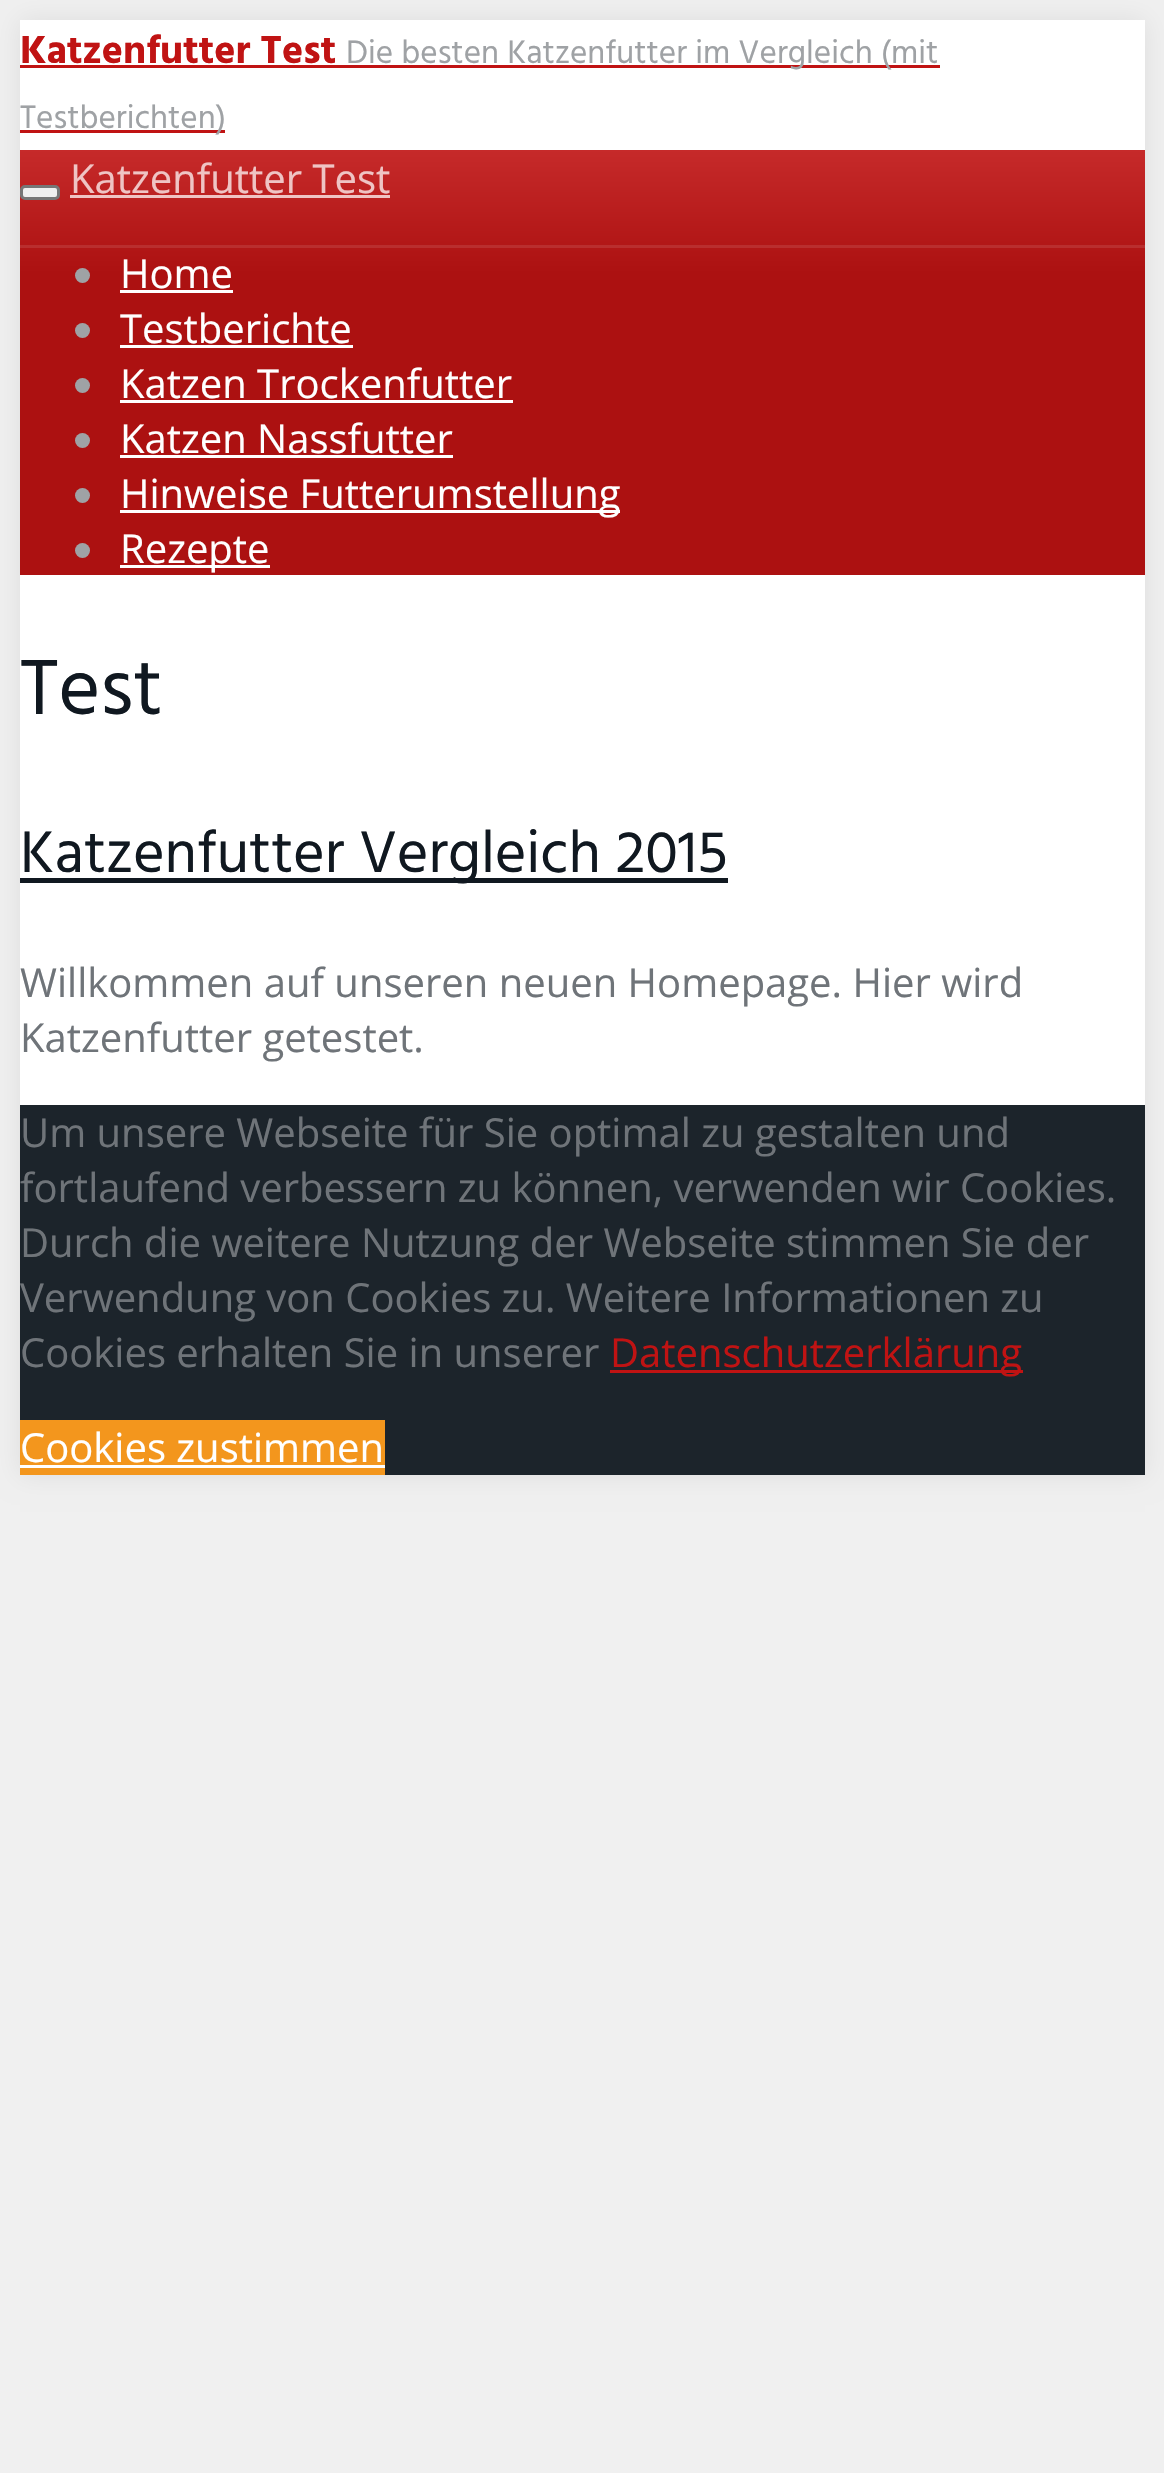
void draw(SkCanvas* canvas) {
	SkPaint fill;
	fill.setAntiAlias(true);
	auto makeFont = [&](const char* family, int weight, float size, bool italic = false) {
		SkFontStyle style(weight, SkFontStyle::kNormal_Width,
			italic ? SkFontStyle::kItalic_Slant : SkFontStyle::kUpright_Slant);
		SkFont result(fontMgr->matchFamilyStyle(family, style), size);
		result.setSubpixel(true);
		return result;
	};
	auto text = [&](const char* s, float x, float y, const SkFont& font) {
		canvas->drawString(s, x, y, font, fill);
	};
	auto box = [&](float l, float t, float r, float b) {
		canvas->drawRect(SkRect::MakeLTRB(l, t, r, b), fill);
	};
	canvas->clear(0xFFF0F0F0);
	fill.setColor(0xFFDDDDDD);
	fill.setMaskFilter(SkMaskFilter::MakeBlur(kNormal_SkBlurStyle, 12.5f));
	canvas->drawRect(SkRect::MakeLTRB(20, 20, 1145, 1475), fill);
	fill.setMaskFilter(nullptr);
	fill.setColor(0xFFFFFFFF);
	box(20, 20, 1145, 1105);
	fill.setColor(0xFFC01313);
	box(20, 65, 940, 68);
	box(20, 130, 225, 133);
	{
		const SkColor colors[] = {0xFFC62A2A, 0xFFAC1111};
		const float stops[] = {0, 0.29f};
		const SkPoint ends[] = {{583, 150}, {583, 575}};
		fill.setShader(SkGradientShader::MakeLinear(ends, colors, stops, 2, SkTileMode::kClamp));
		fill.setAlpha(255);
	}
	box(20, 150, 1145, 575);
	fill.setShader(nullptr);
	fill.setColor(0xFFEFEFEF);
	canvas->drawRoundRect(SkRect::MakeLTRB(21.5f, 186.5f, 58.5f, 198.5f), 3.5f, 3.5f, fill);
	fill.setStyle(SkPaint::kStroke_Style);
	fill.setStrokeWidth(3);
	fill.setColor(0xFF767676);
	canvas->drawRoundRect(SkRect::MakeLTRB(21.5f, 186.5f, 58.5f, 198.5f), 3.5f, 3.5f, fill);
	fill.setStyle(SkPaint::kFill_Style);
	fill.setColor(0xFFEFC4C4);
	box(70, 195, 390, 198);
	fill.setColor(0xFFB92E2E);
	box(20, 245, 1145, 248);
	fill.setColor(0xFF9FA2A5);
	canvas->drawCircle(82.5f, 275.5f, 7.5f, fill);
	fill.setColor(0xFFFFFFFF);
	box(120, 290, 233, 293);
	fill.setColor(0xFF9FA2A5);
	canvas->drawCircle(82.5f, 330.5f, 7.5f, fill);
	fill.setColor(0xFFFFFFFF);
	box(120, 345, 353, 348);
	fill.setColor(0xFF9FA2A5);
	canvas->drawCircle(82.5f, 385.5f, 7.5f, fill);
	fill.setColor(0xFFFFFFFF);
	box(120, 400, 513, 403);
	fill.setColor(0xFF9FA2A5);
	canvas->drawCircle(82.5f, 440.5f, 7.5f, fill);
	fill.setColor(0xFFFFFFFF);
	box(120, 455, 453, 458);
	fill.setColor(0xFF9FA2A5);
	canvas->drawCircle(82.5f, 495.5f, 7.5f, fill);
	fill.setColor(0xFFFFFFFF);
	box(120, 510, 620, 513);
	fill.setColor(0xFF9FA2A5);
	canvas->drawCircle(82.5f, 550.5f, 7.5f, fill);
	fill.setColor(0xFFFFFFFF);
	box(120, 565, 270, 568);
	fill.setColor(0xFF101820);
	box(20, 878, 728, 883);
	fill.setColor(0xFF1C242B);
	box(20, 1105, 1145, 1475);
	fill.setColor(0xFFC01313);
	box(610, 1370, 1023, 1373);
	fill.setColor(0xFFF3961D);
	box(20, 1420, 385, 1475);
	fill.setColor(0xFFFFFFFF);
	box(20, 1465, 385, 1468);
	auto font1 = makeFont("Hind", 700, 40);
	fill.setColor(0xFFC01313);
	text("Katzenfutter Test", 20, 63, font1);
	auto font2 = makeFont("Hind", 400, 33.3f);
	fill.setColor(0xFF9FA2A5);
	text("Die besten Katzenfutter im Vergleich (mit", 346, 63, font2);
	text("Testberichten)", 20, 128, font2);
	auto font3 = makeFont("Open Sans", 400, 40);
	fill.setColor(0xFFEFC4C4);
	text("Katzenfutter Test", 70, 193, font3);
	fill.setColor(0xFFFFFFFF);
	text("Home", 120, 288, font3);
	text("Testberichte", 120, 343, font3);
	text("Katzen Trockenfutter", 120, 398, font3);
	text("Katzen Nassfutter", 120, 453, font3);
	text("Hinweise Futterumstellung", 120, 508, font3);
	text("Rezepte", 120, 563, font3);
	auto font4 = makeFont("Hind", 400, 80);
	fill.setColor(0xFF101820);
	text("Test", 20, 714, font4);
	auto font5 = makeFont("Hind", 400, 60);
	text("Katzenfutter Vergleich 2015", 20, 872, font5);
	fill.setColor(0xFF6F7479);
	text("Willkommen auf unseren neuen Homepage. Hier wird", 20, 997, font3);
	text("Katzenfutter getestet.", 20, 1052, font3);
	text("Um unsere Webseite für Sie optimal zu gestalten und", 20, 1147, font3);
	text("fortlaufend verbessern zu können, verwenden wir Cookies.", 20, 1202, font3);
	text("Durch die weitere Nutzung der Webseite stimmen Sie der", 20, 1257, font3);
	text("Verwendung von Cookies zu. Weitere Informationen zu", 20, 1312, font3);
	text("Cookies erhalten Sie in unserer", 20, 1367, font3);
	fill.setColor(0xFFC01313);
	text("Datenschutzerklärung", 610, 1367, font3);
	fill.setColor(0xFFFFFFFF);
	text("Cookies zustimmen", 20, 1462, font3);
}
